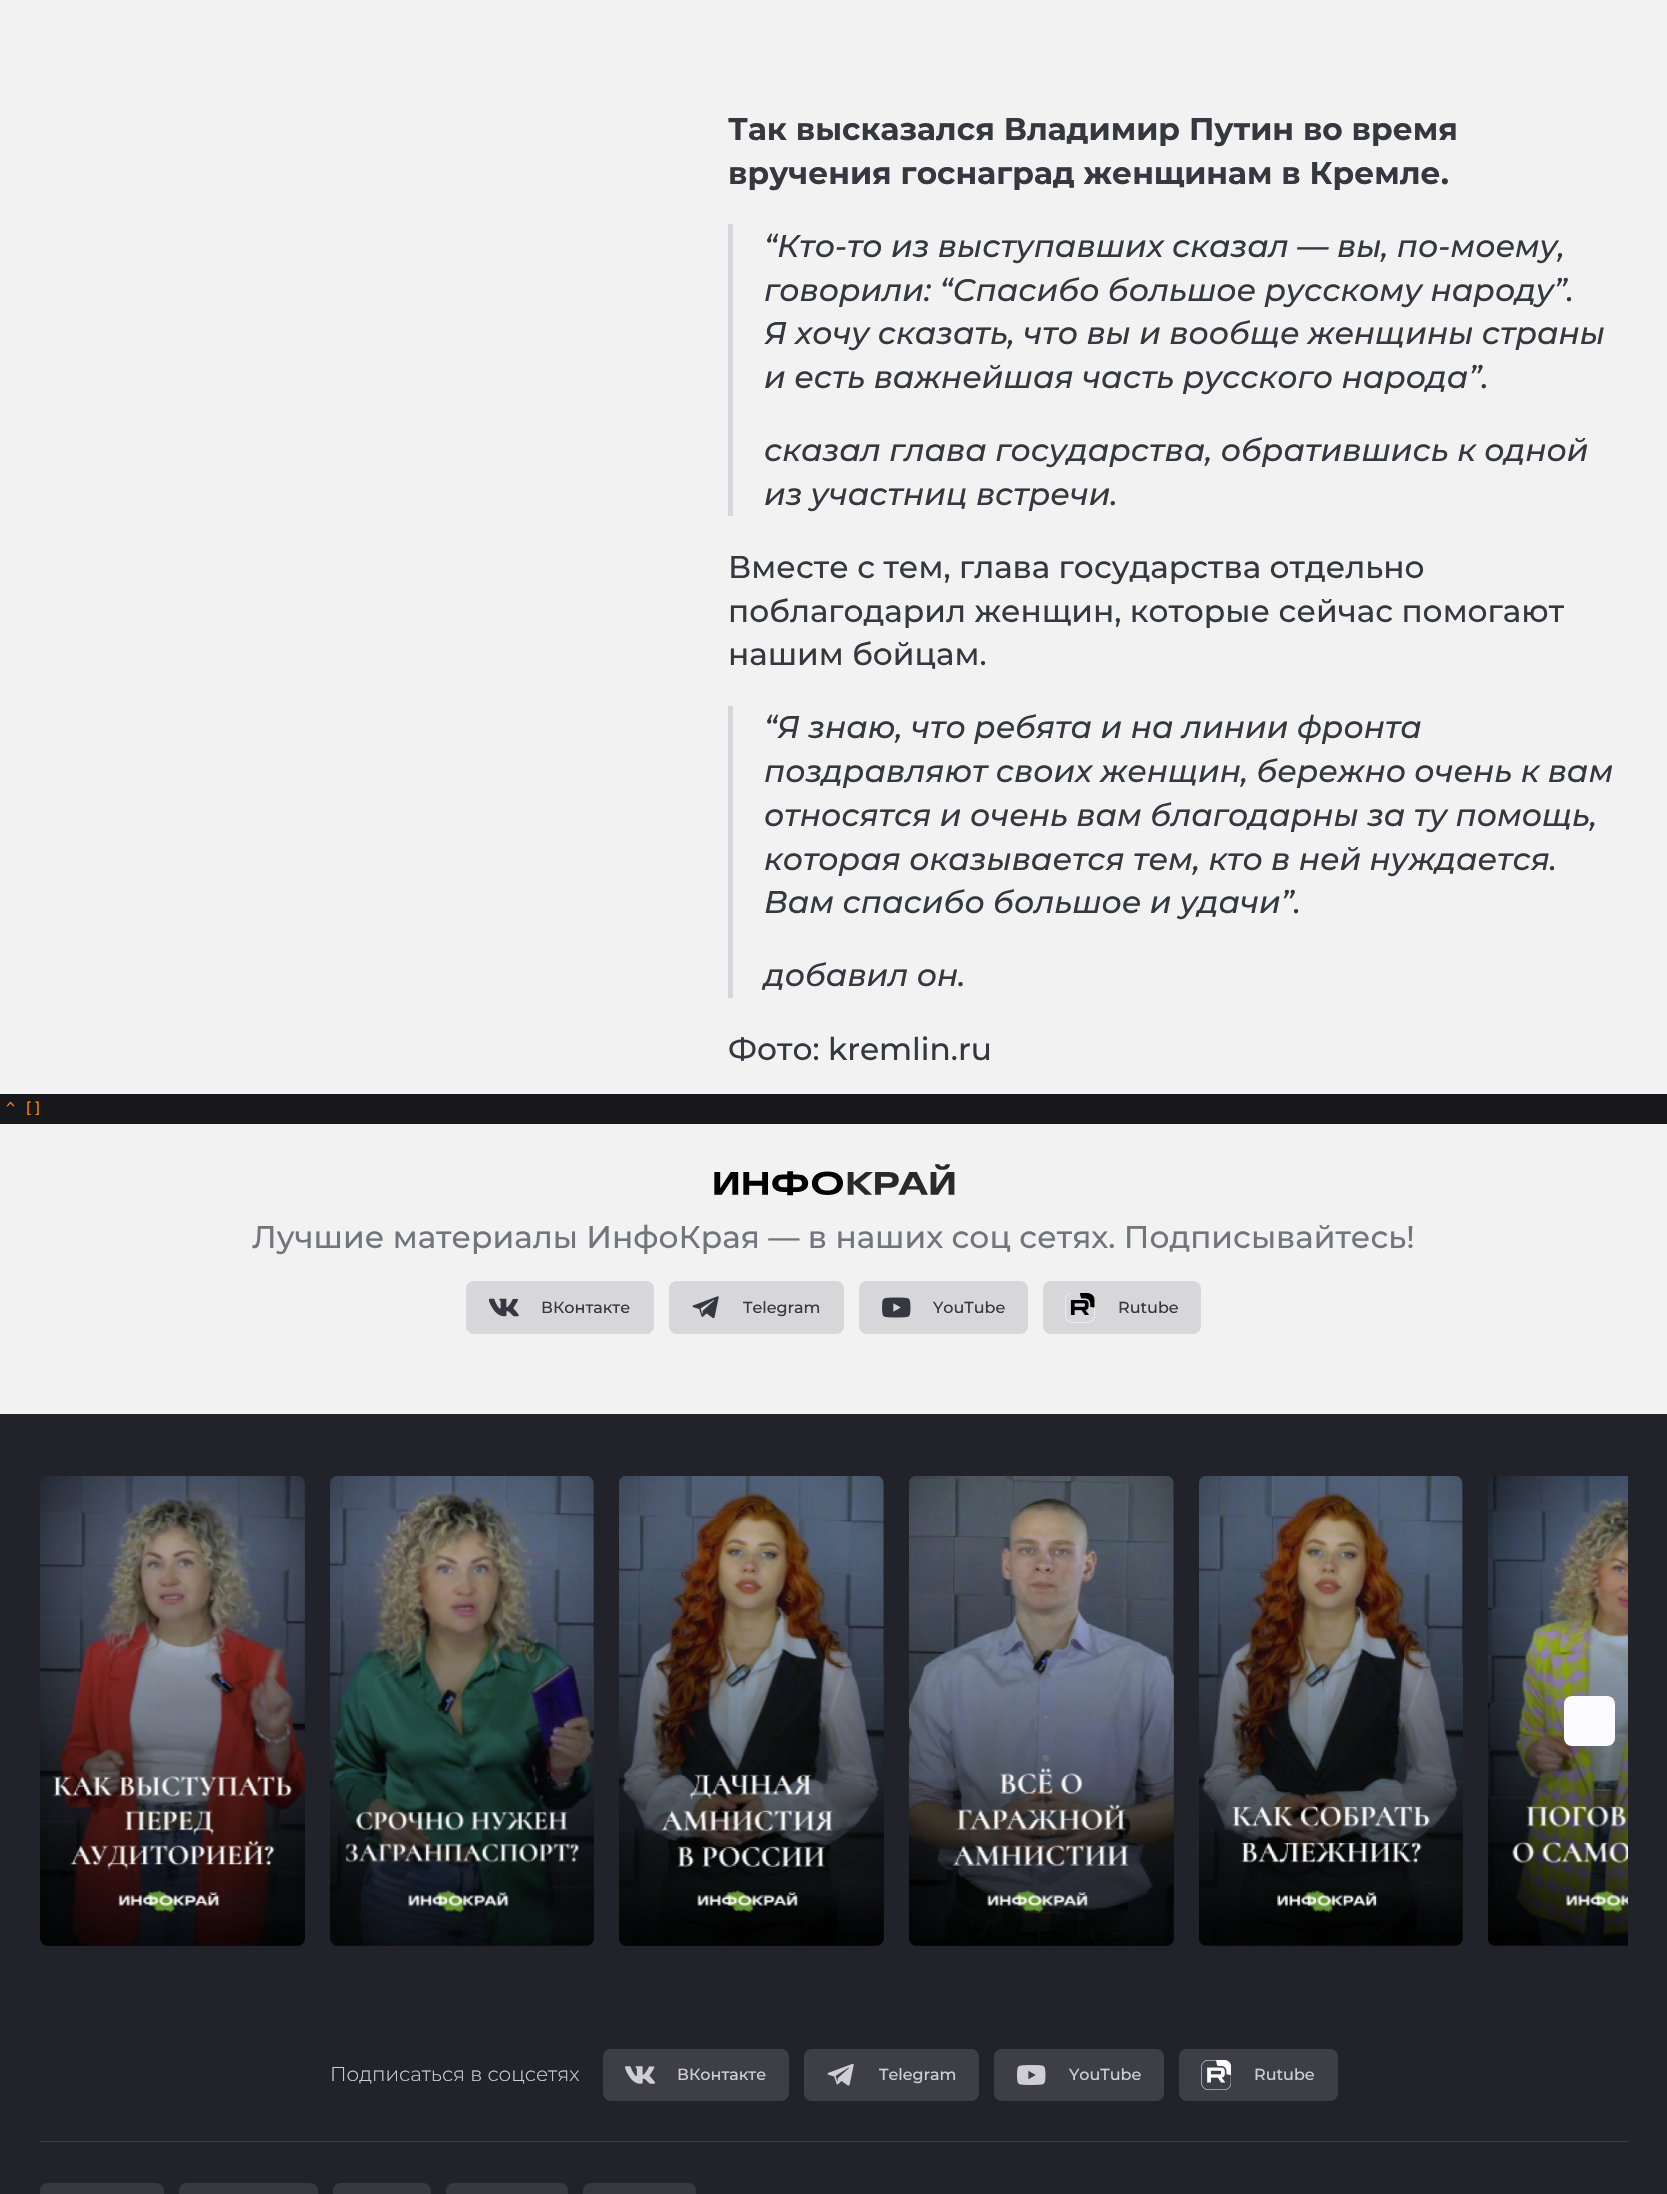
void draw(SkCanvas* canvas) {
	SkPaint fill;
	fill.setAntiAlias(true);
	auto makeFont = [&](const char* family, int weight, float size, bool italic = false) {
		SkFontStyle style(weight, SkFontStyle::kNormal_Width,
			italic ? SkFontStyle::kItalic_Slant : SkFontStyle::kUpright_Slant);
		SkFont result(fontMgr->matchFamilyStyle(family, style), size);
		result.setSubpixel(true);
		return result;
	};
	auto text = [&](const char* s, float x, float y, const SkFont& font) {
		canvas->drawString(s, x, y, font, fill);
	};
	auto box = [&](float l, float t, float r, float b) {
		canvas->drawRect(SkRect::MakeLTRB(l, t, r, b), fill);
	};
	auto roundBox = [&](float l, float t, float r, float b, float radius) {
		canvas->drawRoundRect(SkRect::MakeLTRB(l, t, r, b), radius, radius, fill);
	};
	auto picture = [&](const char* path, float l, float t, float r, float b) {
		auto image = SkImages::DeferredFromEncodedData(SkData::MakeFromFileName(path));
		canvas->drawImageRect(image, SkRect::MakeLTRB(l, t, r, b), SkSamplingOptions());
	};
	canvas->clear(0xFFF2F2F3);
	fill.setColor(0xFFD7D7DA);
	box(728, 224, 733, 516);
	box(728, 706, 733, 998);
	fill.setColor(0xFF18171B);
	box(0, 1094, 1667, 1124);
	picture("image0.png", 714, 1164, 955, 1196);
	fill.setColor(0xFFD7D7DA);
	roundBox(466, 1281, 654, 1334, 8);
	picture("image1.png", 489, 1298, 519, 1317);
	roundBox(669, 1281, 844, 1334, 8);
	picture("image2.png", 692, 1296, 719, 1319);
	roundBox(859, 1281, 1028, 1334, 8);
	picture("image3.png", 882, 1297, 911, 1318);
	roundBox(1043, 1281, 1201, 1334, 8);
	picture("image4.png", 1065, 1293, 1095, 1323);
	fill.setColor(0xFF22232A);
	box(0, 1414, 1667, 2194);
	fill.setColor(0xFF131316);
	roundBox(40, 1476, 305, 1946, 8);
	picture("image5.png", 40, 1476, 305, 1946);
	roundBox(330, 1476, 594, 1946, 8);
	picture("image6.png", 330, 1476, 594, 1946);
	roundBox(619, 1476, 884, 1946, 8);
	picture("image7.png", 619, 1476, 884, 1946);
	roundBox(909, 1476, 1174, 1946, 8);
	picture("image8.png", 909, 1476, 1174, 1946);
	roundBox(1199, 1476, 1463, 1946, 8);
	picture("image9.png", 1199, 1476, 1463, 1946);
	picture("image10.png", 1488, 1476, 1628, 1946);
	fill.setColor(0xFFFAFAFF);
	roundBox(1564, 1696, 1615, 1746, 8);
	fill.setColor(0xFF3E3E46);
	box(40, 2141, 1628, 2142);
	roundBox(603, 2049, 789, 2101, 8);
	picture("image11.png", 625, 2066, 655, 2084);
	roundBox(804, 2049, 979, 2101, 8);
	picture("image12.png", 827, 2063, 854, 2086);
	roundBox(994, 2049, 1164, 2101, 8);
	picture("image13.png", 1017, 2065, 1046, 2085);
	roundBox(1179, 2049, 1338, 2101, 8);
	picture("image14.png", 1201, 2060, 1231, 2090);
	fill.setColor(0xFF38393F);
	roundBox(40, 2183, 164, 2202, 8);
	roundBox(179, 2183, 318, 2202, 8);
	roundBox(333, 2183, 431, 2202, 8);
	roundBox(446, 2183, 568, 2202, 8);
	roundBox(583, 2183, 696, 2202, 8);
	auto font1 = makeFont("Montserrat", 700, 31.25f);
	fill.setColor(0xFF37383F);
	text("Так высказался Владимир Путин во время", 728, 140, font1);
	text("вручения госнаград женщинам в Кремле.", 728, 184, font1);
	auto font2 = makeFont("Montserrat", 500, 31.25f, true);
	text("“Кто-то из выступавших сказал — вы, по-моему,", 764, 257, font2);
	text("говорили: “Спасибо большое русскому народу”.", 764, 301, font2);
	text("Я хочу сказать, что вы и вообще женщины страны", 764, 344, font2);
	text("и есть важнейшая часть русского народа”.", 764, 388, font2);
	text("сказал глава государства, обратившись к одной", 764, 461, font2);
	text("из участниц встречи.", 764, 505, font2);
	auto font3 = makeFont("Montserrat", 500, 31.25f);
	text("Вместе с тем, глава государства отдельно", 728, 578, font3);
	text("поблагодарил женщин, которые сейчас помогают", 728, 622, font3);
	text("нашим бойцам.", 728, 665, font3);
	text("“Я знаю, что ребята и на линии фронта", 764, 738, font2);
	text("поздравляют своих женщин, бережно очень к вам", 764, 782, font2);
	text("относятся и очень вам благодарны за ту помощь,", 764, 826, font2);
	text("которая оказывается тем, кто в ней нуждается.", 764, 870, font2);
	text("Вам спасибо большое и удачи”.", 764, 913, font2);
	text("добавил он.", 764, 986, font2);
	text("Фото: kremlin.ru", 728, 1060, font3);
	auto font4 = makeFont("DejaVu Sans Mono", 400, 15);
	fill.setColor(0xFFFF8400);
	text("^", 6, 1113, font4);
	text("[]", 24, 1113, font4);
	fill.setColor(0xFF73757D);
	text("Лучшие материалы ИнфоКрая — в наших соц сетях. Подписывайтесь!", 252, 1248, font3);
	auto font5 = makeFont("Montserrat", 500, 16);
	fill.setColor(0xFF37383F);
	text("ВКонтакте", 541, 1313, font5);
	text("Telegram", 743, 1313, font5);
	text("YouTube", 933, 1313, font5);
	text("Rutube", 1118, 1313, font5);
	auto font6 = makeFont("Montserrat", 300, 20);
	fill.setColor(0xFFCFCFD3);
	text("Подписаться в соцсетях", 330, 2081, font6);
	text("ВКонтакте", 677, 2080, font5);
	text("Telegram", 879, 2080, font5);
	text("YouTube", 1069, 2080, font5);
	text("Rutube", 1254, 2080, font5);
}
